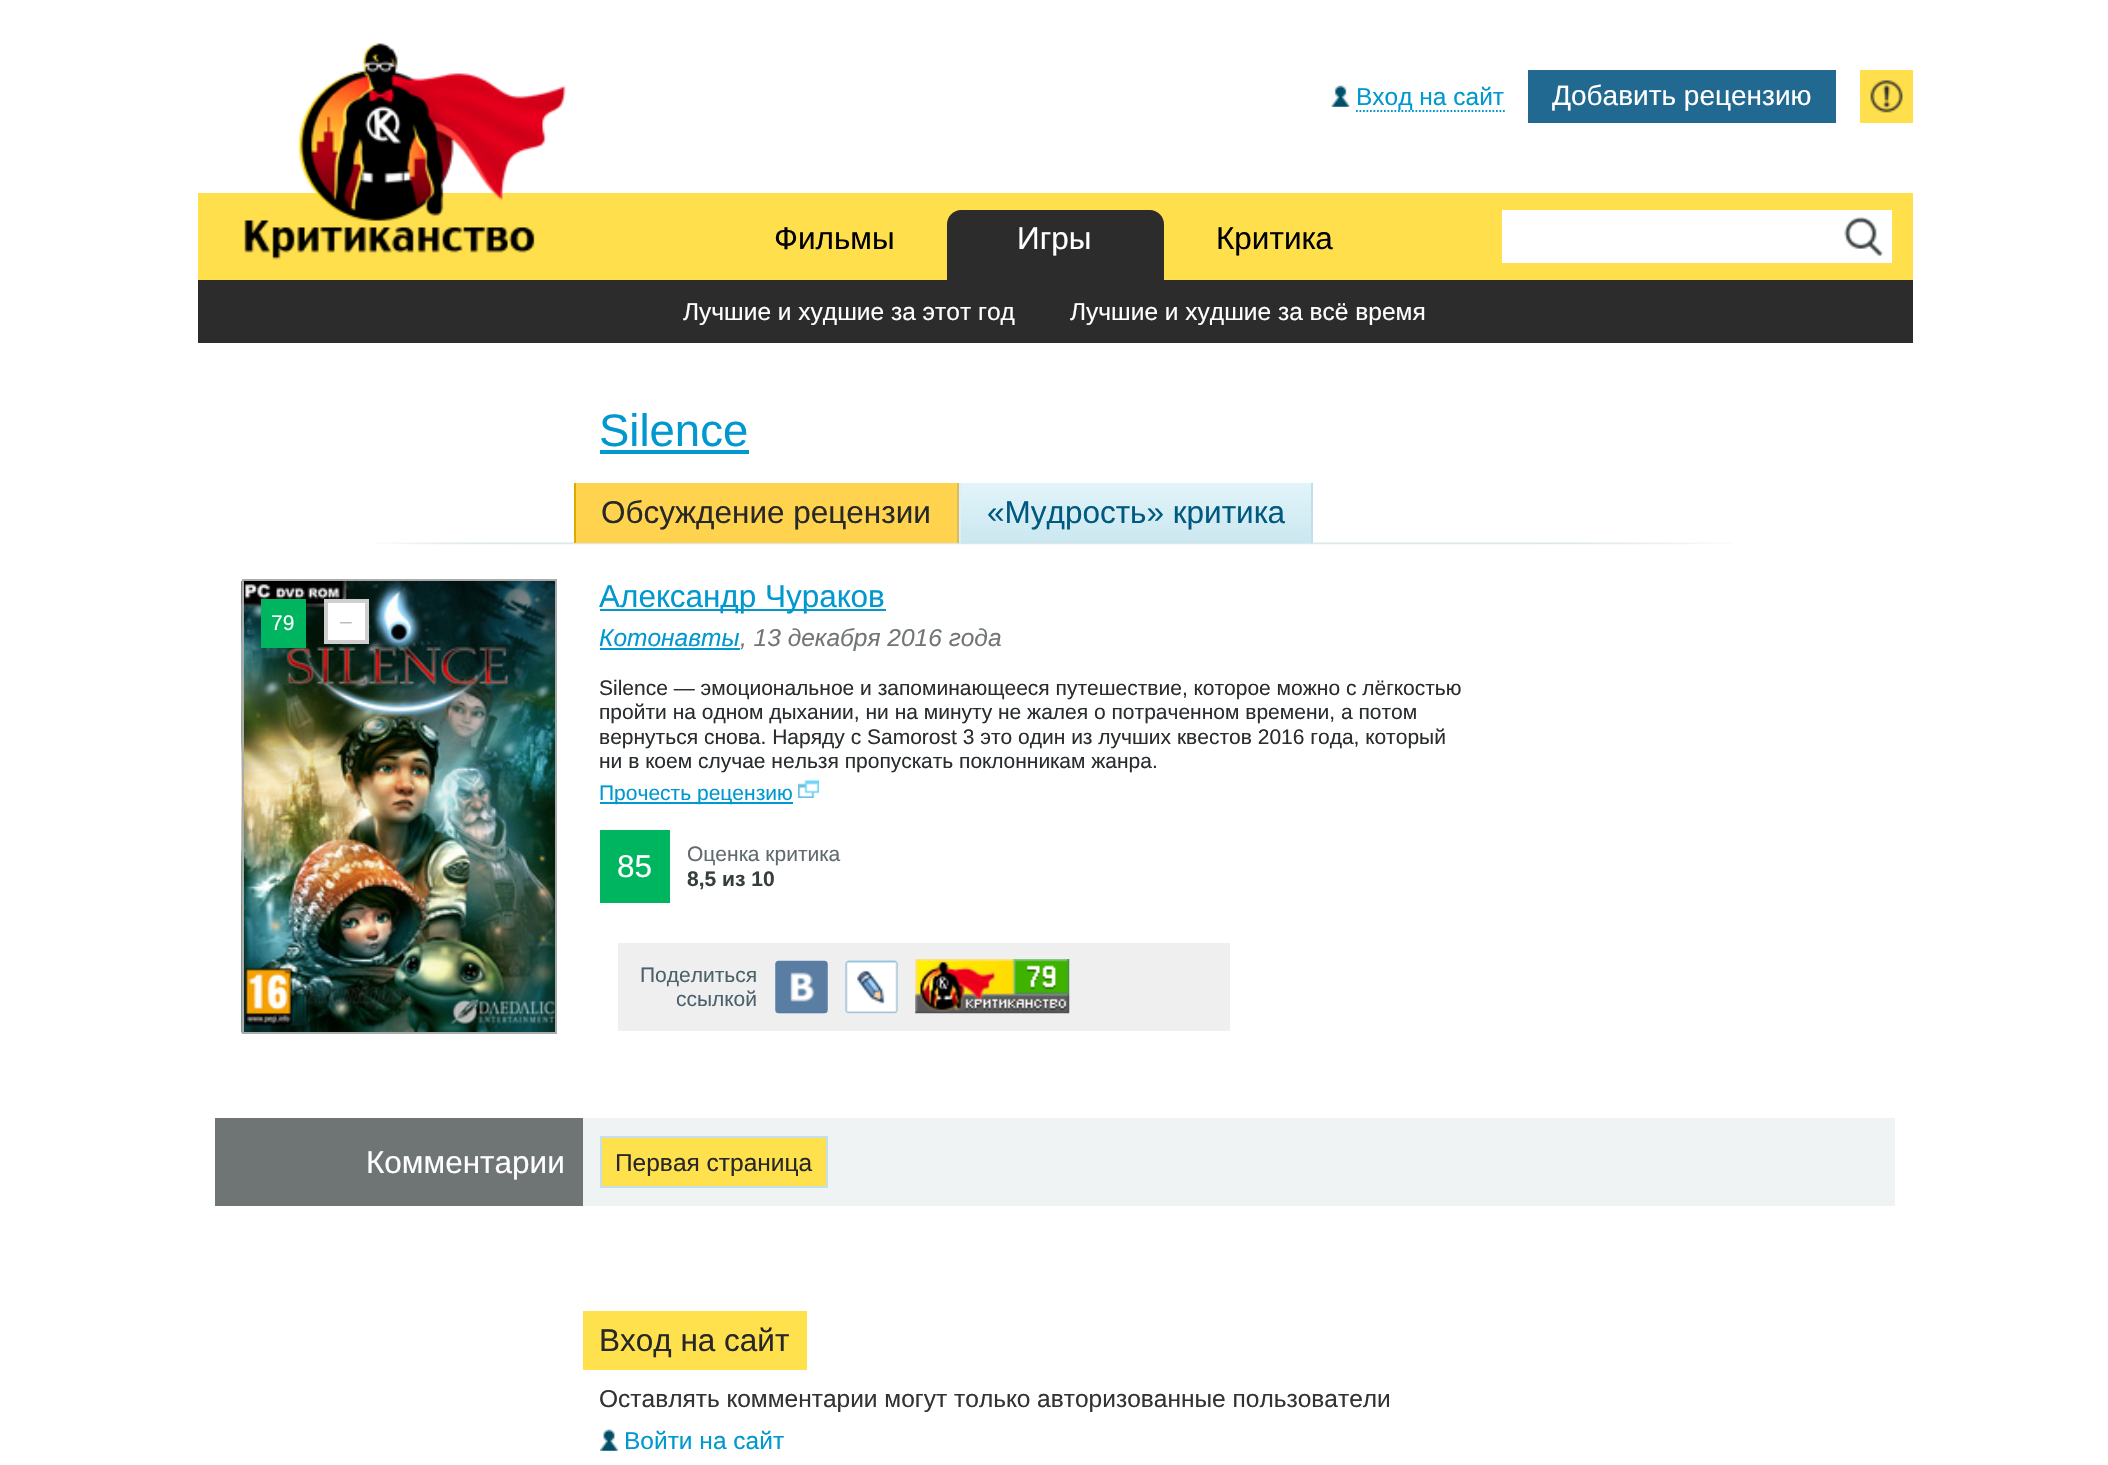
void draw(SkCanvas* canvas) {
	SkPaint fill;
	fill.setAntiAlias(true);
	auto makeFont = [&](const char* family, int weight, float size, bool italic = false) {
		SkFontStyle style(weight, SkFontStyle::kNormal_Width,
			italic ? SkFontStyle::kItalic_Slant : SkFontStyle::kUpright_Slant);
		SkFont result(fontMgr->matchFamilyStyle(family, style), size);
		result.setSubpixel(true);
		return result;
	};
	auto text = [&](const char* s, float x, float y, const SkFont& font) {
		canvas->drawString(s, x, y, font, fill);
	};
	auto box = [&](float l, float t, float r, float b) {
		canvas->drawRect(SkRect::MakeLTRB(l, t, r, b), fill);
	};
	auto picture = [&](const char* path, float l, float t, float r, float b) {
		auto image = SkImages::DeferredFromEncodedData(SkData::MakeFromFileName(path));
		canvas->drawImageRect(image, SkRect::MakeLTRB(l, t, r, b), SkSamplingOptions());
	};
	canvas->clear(0xFFFFFFFF);
	picture("image0.png", 1331, 85, 1350, 107);
	fill.setStyle(SkPaint::kStroke_Style);
	fill.setStrokeWidth(1.8f);
	fill.setColor(0xFF0098CF);
	fill.setPathEffect(SkDashPathEffect::Make({{1.75f, 1.75f}}, 0));
	canvas->drawPath(SkPathBuilder().moveTo(1356, 111).lineTo(1505, 111).detach(), fill);
	fill.setPathEffect(nullptr);
	fill.setStyle(SkPaint::kFill_Style);
	fill.setColor(0xFF216990);
	box(1528, 70, 1836, 123);
	fill.setColor(0xFFFFDF4C);
	box(1860, 70, 1913, 123);
	picture("image1.png", 1870, 80, 1903, 113);
	box(198, 193, 1913, 280);
	picture("image2.png", 244, 43, 566, 260);
	fill.setColor(0xFF2C2C2C);
	canvas->drawPath(SkPathBuilder().moveTo(961, 210).lineTo(1150, 210).cubicTo(1157.5f, 210, 1164, 216.5f, 1164, 224).lineTo(1164, 282).lineTo(947, 282).lineTo(947, 224).cubicTo(947, 216.5f, 953.5f, 210, 961, 210).close().detach(), fill);
	box(198, 280, 1913, 343);
	fill.setColor(0xFFFFFFFF);
	box(1502, 210, 1892, 263);
	picture("image3.png", 1844, 217, 1884, 257);
	fill.setColor(0xFF0098CF);
	box(600, 450, 749, 454);
	picture("image4.png", 374, 542, 1733, 545);
	fill.setColor(0xFFFFD34D);
	box(576, 483, 957, 543);
	fill.setColor(0xFFDCBA64);
	box(957, 483, 959, 543);
	fill.setColor(0xFFDDAA00);
	box(574, 483, 576, 543);
	{
		const SkColor colors[] = {0xFFE2F4FA, 0xFFCBE7F0};
		const float stops[] = {0, 1};
		const SkPoint ends[] = {{1136, 483}, {1136, 543}};
		fill.setShader(SkGradientShader::MakeLinear(ends, colors, stops, 2, SkTileMode::kClamp));
		fill.setAlpha(255);
	}
	box(961, 483, 1311, 543);
	fill.setShader(nullptr);
	fill.setColor(0xFFBEE0EA);
	box(1311, 483, 1313, 543);
	fill.setColor(0xFFD8F2FA);
	box(959, 483, 961, 543);
	picture("image5.png", 241, 581, 555, 1033);
	fill.setStyle(SkPaint::kStroke_Style);
	fill.setStrokeWidth(2);
	fill.setColor(0xFFABABAB);
	canvas->drawRect(SkRect::MakeLTRB(243, 580, 556, 1033), fill);
	fill.setStyle(SkPaint::kFill_Style);
	fill.setColor(0xFF00B55F);
	box(261, 599, 306, 648);
	fill.setColor(0xFFFFFFFF);
	canvas->drawRect(SkRect::MakeLTRB(326, 601, 367, 642), fill);
	fill.setStyle(SkPaint::kStroke_Style);
	fill.setStrokeWidth(4);
	fill.setColor(0xFFCFCFCF);
	canvas->drawRect(SkRect::MakeLTRB(326, 601, 367, 642), fill);
	fill.setStyle(SkPaint::kFill_Style);
	fill.setColor(0xFF0098CF);
	box(600, 609, 886, 611);
	box(600, 648, 740, 650);
	box(600, 802, 793, 804);
	picture("image6.png", 798, 780, 819, 798);
	fill.setColor(0xFF00B55F);
	box(600, 830, 670, 903);
	fill.setColor(0xFFEFEFEF);
	box(618, 943, 1230, 1031);
	picture("image7.png", 775, 960, 828, 1014);
	picture("image8.png", 845, 960, 898, 1014);
	picture("image9.png", 915, 959, 1070, 1014);
	fill.setColor(0xFF6F7475);
	box(215, 1118, 583, 1206);
	fill.setColor(0xFFF0F3F3);
	box(583, 1118, 1895, 1206);
	fill.setColor(0xFFFFE04D);
	canvas->drawRect(SkRect::MakeLTRB(601, 1137, 827, 1187), fill);
	fill.setStyle(SkPaint::kStroke_Style);
	fill.setStrokeWidth(2);
	fill.setColor(0xFFC5DFE8);
	canvas->drawRect(SkRect::MakeLTRB(601, 1137, 827, 1187), fill);
	fill.setStyle(SkPaint::kFill_Style);
	fill.setColor(0xFFFFE04D);
	box(583, 1311, 807, 1370);
	picture("image10.png", 600, 1429, 618, 1451);
	auto font1 = makeFont("Liberation Sans", 400, 24.5f);
	fill.setColor(0xFF0098CF);
	text("Вход на сайт", 1356, 105, font1);
	auto font2 = makeFont("Liberation Sans", 400, 28);
	fill.setColor(0xFFFFFFFF);
	text("Добавить рецензию", 1552, 105, font2);
	auto font3 = makeFont("Liberation Sans", 400, 31.5f);
	text("Игры", 1017, 249, font3);
	text("Лучшие и худшие за этот год", 683, 320, font1);
	text("Лучшие и худшие за всё время", 1070, 320, font1);
	fill.setColor(0xFF000000);
	text("Фильмы", 774, 249, font3);
	text("Критика", 1216, 249, font3);
	auto font4 = makeFont("Liberation Sans", 400, 45.5f);
	fill.setColor(0xFF0098CF);
	text("Silence", 599, 446, font4);
	fill.setColor(0xFF282828);
	text("Обсуждение рецензии", 601, 523, font3);
	fill.setColor(0xFF005A7F);
	text("«Мудрость» критика", 987, 523, font3);
	auto font5 = makeFont("Liberation Sans", 400, 21);
	fill.setColor(0xFFFFFFFF);
	text("79", 271, 630, font5);
	fill.setColor(0xFFBBBBBB);
	text("–", 340, 628, font5);
	fill.setColor(0xFF0098CF);
	text("Александр Чураков", 599, 607, font3);
	auto font6 = makeFont("Liberation Sans", 400, 24.5f, true);
	text("Котонавты", 599, 646, font6);
	fill.setColor(0xFF727677);
	text(", 13 декабря 2016 года", 740, 646, font6);
	fill.setColor(0xFF292D2F);
	text("Silence — эмоциональное и запоминающееся путешествие, которое можно с лёгкостью", 599, 695, font5);
	text("пройти на одном дыхании, ни на минуту не жалея о потраченном времени, а потом", 599, 719, font5);
	text("вернуться снова. Наряду с Samorost 3 это один из лучших квестов 2016 года, который", 599, 744, font5);
	text("ни в коем случае нельзя пропускать поклонникам жанра.", 599, 768, font5);
	fill.setColor(0xFF0098CF);
	text("Прочесть рецензию", 599, 800, font5);
	fill.setColor(0xFFFFFFFF);
	text("85", 617, 877, font3);
	fill.setColor(0xFF616B6E);
	text("Оценка критика", 687, 861, font5);
	auto font7 = makeFont("Liberation Sans", 700, 21);
	fill.setColor(0xFF363E40);
	text("8,5 из 10", 687, 886, font7);
	fill.setColor(0xFF4B616C);
	text("Поделиться", 640, 982, font5);
	text("ссылкой", 676, 1006, font5);
	fill.setColor(0xFFFFFFFF);
	text("Комментарии", 366, 1173, font3);
	fill.setColor(0xFF282828);
	text("Первая страница", 615, 1171, font1);
	text("Вход на сайт", 599, 1351, font3);
	fill.setColor(0xFF333333);
	text("Оставлять комментарии могут только авторизованные пользователи", 599, 1407, font1);
	fill.setColor(0xFF0098CF);
	text("Войти на сайт", 624, 1449, font1);
}
